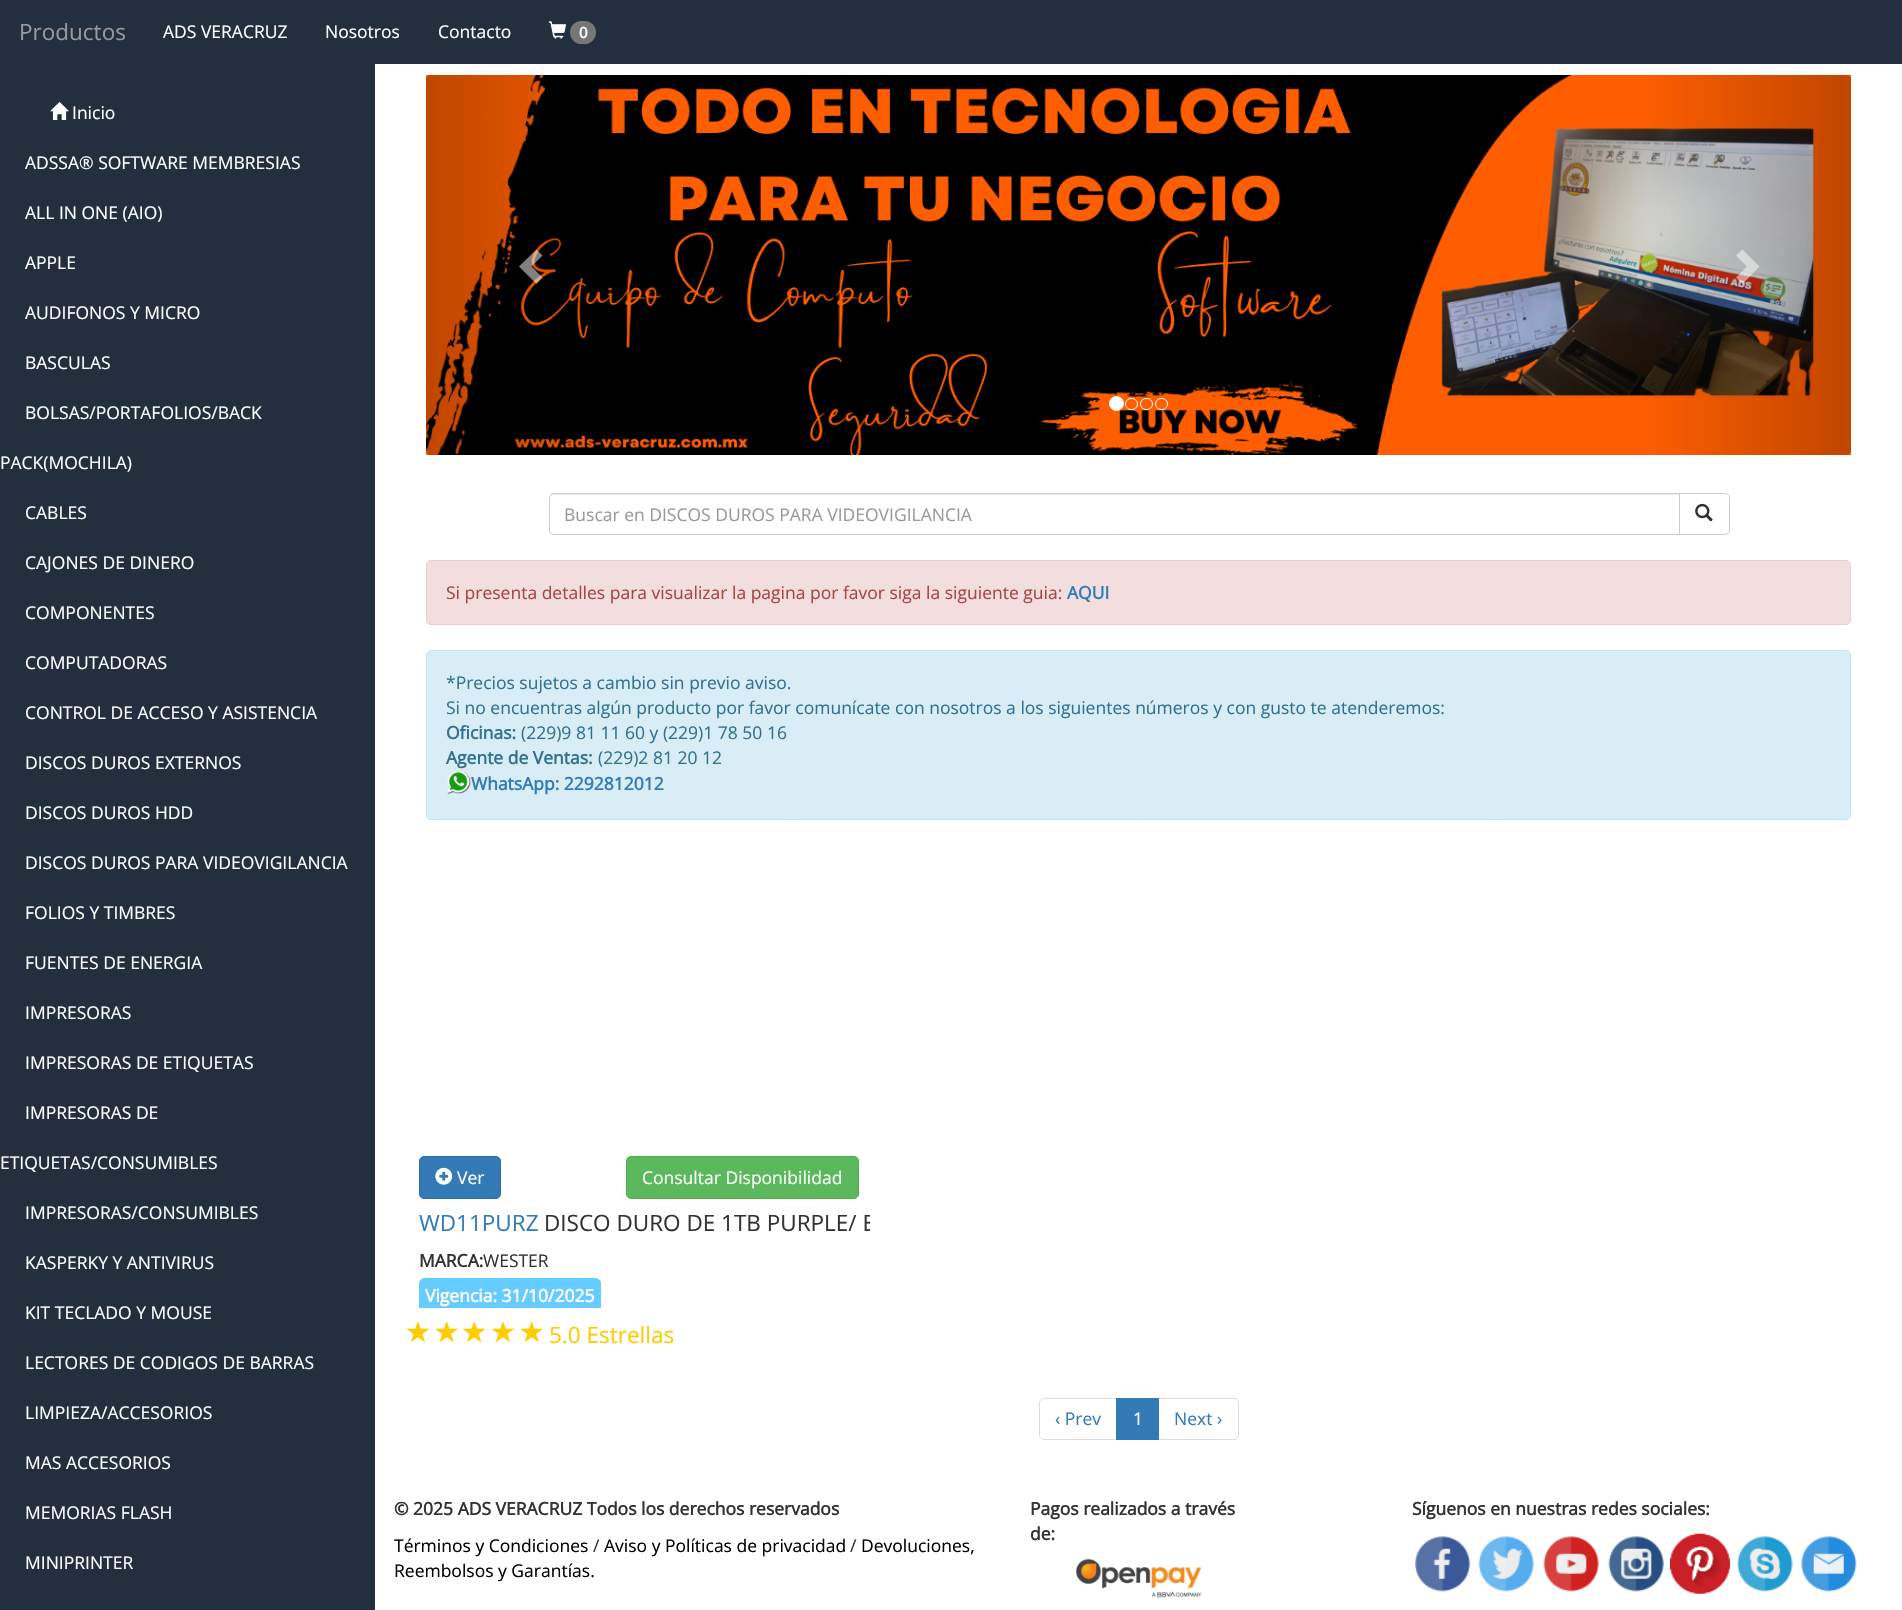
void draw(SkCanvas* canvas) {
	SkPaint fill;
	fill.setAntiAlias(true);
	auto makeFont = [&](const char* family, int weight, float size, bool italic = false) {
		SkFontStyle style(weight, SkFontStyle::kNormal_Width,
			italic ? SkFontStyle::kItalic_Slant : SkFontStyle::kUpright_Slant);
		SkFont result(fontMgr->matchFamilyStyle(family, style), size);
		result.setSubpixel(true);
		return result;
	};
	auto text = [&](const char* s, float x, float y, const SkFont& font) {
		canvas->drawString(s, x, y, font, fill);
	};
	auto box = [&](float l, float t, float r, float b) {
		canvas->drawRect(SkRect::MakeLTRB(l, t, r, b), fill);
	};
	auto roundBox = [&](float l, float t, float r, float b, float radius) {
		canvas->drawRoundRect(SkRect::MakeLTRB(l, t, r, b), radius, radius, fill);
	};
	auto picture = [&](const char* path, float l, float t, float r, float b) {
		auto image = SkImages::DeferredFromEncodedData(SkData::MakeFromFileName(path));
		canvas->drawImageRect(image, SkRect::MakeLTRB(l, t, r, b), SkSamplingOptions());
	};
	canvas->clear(0xFFFFFFFF);
	fill.setColor(0xFF232F3E);
	box(0, 0, 1902, 64);
	picture("image0.png", 548, 21, 566, 39);
	fill.setColor(0xFF777777);
	roundBox(570, 21, 596, 44, 11.5f);
	fill.setColor(0xFF232F3E);
	box(0, 64, 375, 1610);
	picture("image1.png", 50, 102, 69, 120);
	picture("image2.png", 426, 75, 1851, 455);
	fill.setColor(0x80FFFFFF);
	canvas->drawPath(SkPathBuilder().moveTo(542.5f, 255.5f).lineTo(531.5f, 266.5f).lineTo(542.5f, 277.5f).lineTo(536.5f, 284).lineTo(519, 266.5f).lineTo(536.5f, 249.5f).close().detach(), fill);
	canvas->drawPath(SkPathBuilder().moveTo(1759.5f, 266.5f).lineTo(1742.5f, 284).lineTo(1736, 277.5f).lineTo(1747, 266.5f).lineTo(1736, 255.5f).lineTo(1742.5f, 249.5f).close().detach(), fill);
	fill.setColor(0xFFFFFFFF);
	canvas->drawCircle(1116.5f, 403.5f, 7, fill);
	fill.setStyle(SkPaint::kStroke_Style);
	fill.setStrokeWidth(1);
	canvas->drawCircle(1116.5f, 403.5f, 7, fill);
	canvas->drawRoundRect(SkRect::MakeLTRB(1125.5f, 398.5f, 1137.5f, 409.5f), 5.5f, 5.5f, fill);
	canvas->drawRoundRect(SkRect::MakeLTRB(1140.5f, 398.5f, 1152.5f, 409.5f), 5.5f, 5.5f, fill);
	canvas->drawRoundRect(SkRect::MakeLTRB(1155.5f, 398.5f, 1167.5f, 409.5f), 5.5f, 5.5f, fill);
	fill.setStyle(SkPaint::kFill_Style);
	fill.setColor(0xFFECECEC);
	canvas->drawPath(SkPathBuilder().moveTo(554, 495).lineTo(1679, 495).lineTo(1679, 494).lineTo(554, 494).cubicTo(551, 494, 550, 496, 550, 499).cubicTo(550, 497, 552, 495, 554, 495).close().detach(), fill);
	fill.setStyle(SkPaint::kStroke_Style);
	fill.setColor(0xFFCCCCCC);
	canvas->drawPath(SkPathBuilder().moveTo(554, 493.5f).lineTo(1679.5f, 493.5f).lineTo(1679.5f, 534.5f).lineTo(554, 534.5f).cubicTo(551.5f, 534.5f, 549.5f, 532.5f, 549.5f, 530).lineTo(549.5f, 498).cubicTo(549.5f, 495.5f, 551.5f, 493.5f, 554, 493.5f).close().detach(), fill);
	fill.setStyle(SkPaint::kFill_Style);
	fill.setColor(0xFFFFFFFF);
	canvas->drawPath(SkPathBuilder().moveTo(1679.5f, 493.5f).lineTo(1725, 493.5f).cubicTo(1727.5f, 493.5f, 1729.5f, 495.5f, 1729.5f, 498).lineTo(1729.5f, 530).cubicTo(1729.5f, 532.5f, 1727.5f, 534.5f, 1725, 534.5f).lineTo(1679.5f, 534.5f).close().detach(), fill);
	fill.setStyle(SkPaint::kStroke_Style);
	fill.setColor(0xFFCCCCCC);
	canvas->drawPath(SkPathBuilder().moveTo(1679.5f, 493.5f).lineTo(1725, 493.5f).cubicTo(1727.5f, 493.5f, 1729.5f, 495.5f, 1729.5f, 498).lineTo(1729.5f, 530).cubicTo(1729.5f, 532.5f, 1727.5f, 534.5f, 1725, 534.5f).lineTo(1679.5f, 534.5f).close().detach(), fill);
	picture("image3.png", 1695, 503, 1713, 522);
	fill.setStyle(SkPaint::kFill_Style);
	fill.setColor(0xFFF2DEDE);
	canvas->drawRoundRect(SkRect::MakeLTRB(426.5f, 560.5f, 1850.5f, 624.5f), 4.5f, 4.5f, fill);
	fill.setStyle(SkPaint::kStroke_Style);
	fill.setColor(0xFFEBCCD1);
	canvas->drawRoundRect(SkRect::MakeLTRB(426.5f, 560.5f, 1850.5f, 624.5f), 4.5f, 4.5f, fill);
	fill.setStyle(SkPaint::kFill_Style);
	fill.setColor(0xFFD9EDF7);
	canvas->drawRoundRect(SkRect::MakeLTRB(426.5f, 650.5f, 1850.5f, 819.5f), 4.5f, 4.5f, fill);
	fill.setStyle(SkPaint::kStroke_Style);
	fill.setColor(0xFFBCE8F1);
	canvas->drawRoundRect(SkRect::MakeLTRB(426.5f, 650.5f, 1850.5f, 819.5f), 4.5f, 4.5f, fill);
	picture("image4.png", 447, 771, 471, 795);
	fill.setStyle(SkPaint::kFill_Style);
	fill.setColor(0xFF337AB7);
	canvas->drawRoundRect(SkRect::MakeLTRB(419.5f, 1156.5f, 500.5f, 1198.5f), 4.5f, 4.5f, fill);
	fill.setStyle(SkPaint::kStroke_Style);
	fill.setColor(0xFF2E6DA4);
	canvas->drawRoundRect(SkRect::MakeLTRB(419.5f, 1156.5f, 500.5f, 1198.5f), 4.5f, 4.5f, fill);
	picture("image5.png", 435, 1167, 453, 1185);
	fill.setStyle(SkPaint::kFill_Style);
	fill.setColor(0xFF5CB85C);
	canvas->drawRoundRect(SkRect::MakeLTRB(626.5f, 1156.5f, 858.5f, 1198.5f), 4.5f, 4.5f, fill);
	fill.setStyle(SkPaint::kStroke_Style);
	fill.setColor(0xFF4CAE4C);
	canvas->drawRoundRect(SkRect::MakeLTRB(626.5f, 1156.5f, 858.5f, 1198.5f), 4.5f, 4.5f, fill);
	fill.setStyle(SkPaint::kFill_Style);
	fill.setColor(0xFF66CCFF);
	canvas->drawPath(SkPathBuilder().moveTo(425, 1278).lineTo(595, 1278).cubicTo(598.5f, 1278, 601, 1280.5f, 601, 1284).lineTo(601, 1308).lineTo(419, 1308).lineTo(419, 1284).cubicTo(419, 1280.5f, 421.5f, 1278, 425, 1278).close().detach(), fill);
	picture("image6.png", 406, 1321, 429, 1342);
	picture("image7.png", 435, 1321, 458, 1342);
	picture("image8.png", 463, 1321, 486, 1342);
	picture("image6.png", 491, 1321, 514, 1342);
	picture("image7.png", 520, 1321, 543, 1342);
	fill.setStyle(SkPaint::kStroke_Style);
	fill.setColor(0xFFDDDDDD);
	canvas->drawPath(SkPathBuilder().moveTo(1044, 1398.5f).lineTo(1117.5f, 1398.5f).lineTo(1117.5f, 1439.5f).lineTo(1044, 1439.5f).cubicTo(1041.5f, 1439.5f, 1039.5f, 1437.5f, 1039.5f, 1435).lineTo(1039.5f, 1403).cubicTo(1039.5f, 1400.5f, 1041.5f, 1398.5f, 1044, 1398.5f).close().detach(), fill);
	canvas->drawPath(SkPathBuilder().moveTo(1158.5f, 1398.5f).lineTo(1234, 1398.5f).cubicTo(1236.5f, 1398.5f, 1238.5f, 1400.5f, 1238.5f, 1403).lineTo(1238.5f, 1435).cubicTo(1238.5f, 1437.5f, 1236.5f, 1439.5f, 1234, 1439.5f).lineTo(1158.5f, 1439.5f).close().detach(), fill);
	fill.setStyle(SkPaint::kFill_Style);
	fill.setColor(0xFF337AB7);
	box(1116, 1398, 1159, 1440);
	picture("image9.png", 1076, 1558, 1202, 1598);
	picture("image10.png", 1414, 1536, 1471, 1592);
	picture("image11.png", 1478, 1536, 1534, 1592);
	picture("image12.png", 1543, 1536, 1599, 1592);
	picture("image13.png", 1608, 1536, 1664, 1592);
	picture("image14.png", 1670, 1533, 1730, 1594);
	picture("image15.png", 1737, 1536, 1793, 1592);
	picture("image16.png", 1801, 1536, 1857, 1592);
	auto font1 = makeFont("Open Sans", 400, 22.5f);
	fill.setColor(0xFF999999);
	text("Productos", 19, 40, font1);
	auto font2 = makeFont("Open Sans", 400, 17.5f);
	fill.setColor(0xFFFFFFFF);
	text("ADS VERACRUZ", 163, 38, font2);
	text("Nosotros", 325, 38, font2);
	text("Contacto", 438, 38, font2);
	auto font3 = makeFont("Open Sans", 700, 15);
	text("0", 579, 38, font3);
	text("Inicio", 72, 119, font2);
	text("ADSSA® SOFTWARE MEMBRESIAS", 25, 169, font2);
	text("ALL IN ONE (AIO)", 25, 219, font2);
	text("APPLE", 25, 269, font2);
	text("AUDIFONOS Y MICRO", 25, 319, font2);
	text("BASCULAS", 25, 369, font2);
	text("BOLSAS/PORTAFOLIOS/BACK", 25, 419, font2);
	text("PACK(MOCHILA)", 0, 469, font2);
	text("CABLES", 25, 519, font2);
	text("CAJONES DE DINERO", 25, 569, font2);
	text("COMPONENTES", 25, 619, font2);
	text("COMPUTADORAS", 25, 669, font2);
	text("CONTROL DE ACCESO Y ASISTENCIA", 25, 719, font2);
	text("DISCOS DUROS EXTERNOS", 25, 769, font2);
	text("DISCOS DUROS HDD", 25, 819, font2);
	text("DISCOS DUROS PARA VIDEOVIGILANCIA", 25, 869, font2);
	text("FOLIOS Y TIMBRES", 25, 919, font2);
	text("FUENTES DE ENERGIA", 25, 969, font2);
	text("IMPRESORAS", 25, 1019, font2);
	text("IMPRESORAS DE ETIQUETAS", 25, 1069, font2);
	text("IMPRESORAS DE", 25, 1119, font2);
	text("ETIQUETAS/CONSUMIBLES", 0, 1169, font2);
	text("IMPRESORAS/CONSUMIBLES", 25, 1219, font2);
	text("KASPERKY Y ANTIVIRUS", 25, 1269, font2);
	text("KIT TECLADO Y MOUSE", 25, 1319, font2);
	text("LECTORES DE CODIGOS DE BARRAS", 25, 1369, font2);
	text("LIMPIEZA/ACCESORIOS", 25, 1419, font2);
	text("MAS ACCESORIOS", 25, 1469, font2);
	text("MEMORIAS FLASH", 25, 1519, font2);
	text("MINIPRINTER", 25, 1569, font2);
	fill.setColor(0xFF999999);
	text("Buscar en DISCOS DUROS PARA VIDEOVIGILANCIA", 564, 521, font2);
	fill.setColor(0xFFA94442);
	text("Si presenta detalles para visualizar la pagina por favor siga la siguiente guia:", 446, 599, font2);
	auto font4 = makeFont("Open Sans", 700, 17.5f);
	fill.setColor(0xFF337AB7);
	text("AQUI", 1067, 599, font4);
	fill.setColor(0xFF31708F);
	text("*Precios sujetos a cambio sin previo aviso.", 446, 689, font2);
	text("Si no encuentras algún producto por favor comunícate con nosotros a los siguientes números y con gusto te atenderemos:", 446, 714, font2);
	text("Oficinas:", 446, 739, font4);
	text("(229)9 81 11 60 y (229)1 78 50 16", 521, 739, font2);
	text("Agente de Ventas:", 446, 764, font4);
	text("(229)2 81 20 12", 598, 764, font2);
	fill.setColor(0xFF337AB7);
	text("WhatsApp: 2292812012", 471, 790, font4);
	fill.setColor(0xFFFFFFFF);
	text("Ver", 457, 1184, font2);
	text("Consultar Disponibilidad", 642, 1184, font2);
	fill.setColor(0xFF337AB7);
	text("WD11PURZ", 419, 1231, font1);
	canvas->save();
	canvas->clipRect(SkRect::MakeLTRB(408, 1120, 870, 1308));
	fill.setColor(0xFF333333);
	text("DISCO DURO DE 1TB PURPLE/ E", 544, 1231, font1);
	canvas->restore();
	text("MARCA:", 419, 1267, font4);
	text("WESTER", 483, 1267, font2);
	fill.setColor(0xFFFFFFFF);
	text("Vigencia: 31/10/2025", 425, 1302, font4);
	fill.setColor(0xFFFFCC00);
	text("5.0 Estrellas", 549, 1343, font1);
	fill.setColor(0xFF337AB7);
	text("‹ Prev", 1055, 1425, font2);
	fill.setColor(0xFFFFFFFF);
	text("1", 1133, 1425, font2);
	fill.setColor(0xFF337AB7);
	text("Next ›", 1174, 1425, font2);
	fill.setColor(0xFF333333);
	text("© 2025 ADS VERACRUZ Todos los derechos reservados", 394, 1515, font4);
	fill.setColor(0xFF000000);
	text("Términos y Condiciones", 394, 1552, font2);
	fill.setColor(0xFF333333);
	text("/", 593, 1552, font2);
	fill.setColor(0xFF000000);
	text("Aviso y Políticas de privacidad", 604, 1552, font2);
	fill.setColor(0xFF333333);
	text("/", 850, 1552, font2);
	fill.setColor(0xFF000000);
	text("Devoluciones,", 861, 1552, font2);
	text("Reembolsos y Garantías.", 394, 1577, font2);
	fill.setColor(0xFF333333);
	text("Pagos realizados a través", 1030, 1515, font4);
	text("de:", 1030, 1540, font4);
	text("Síguenos en nuestras redes sociales:", 1412, 1515, font4);
}
